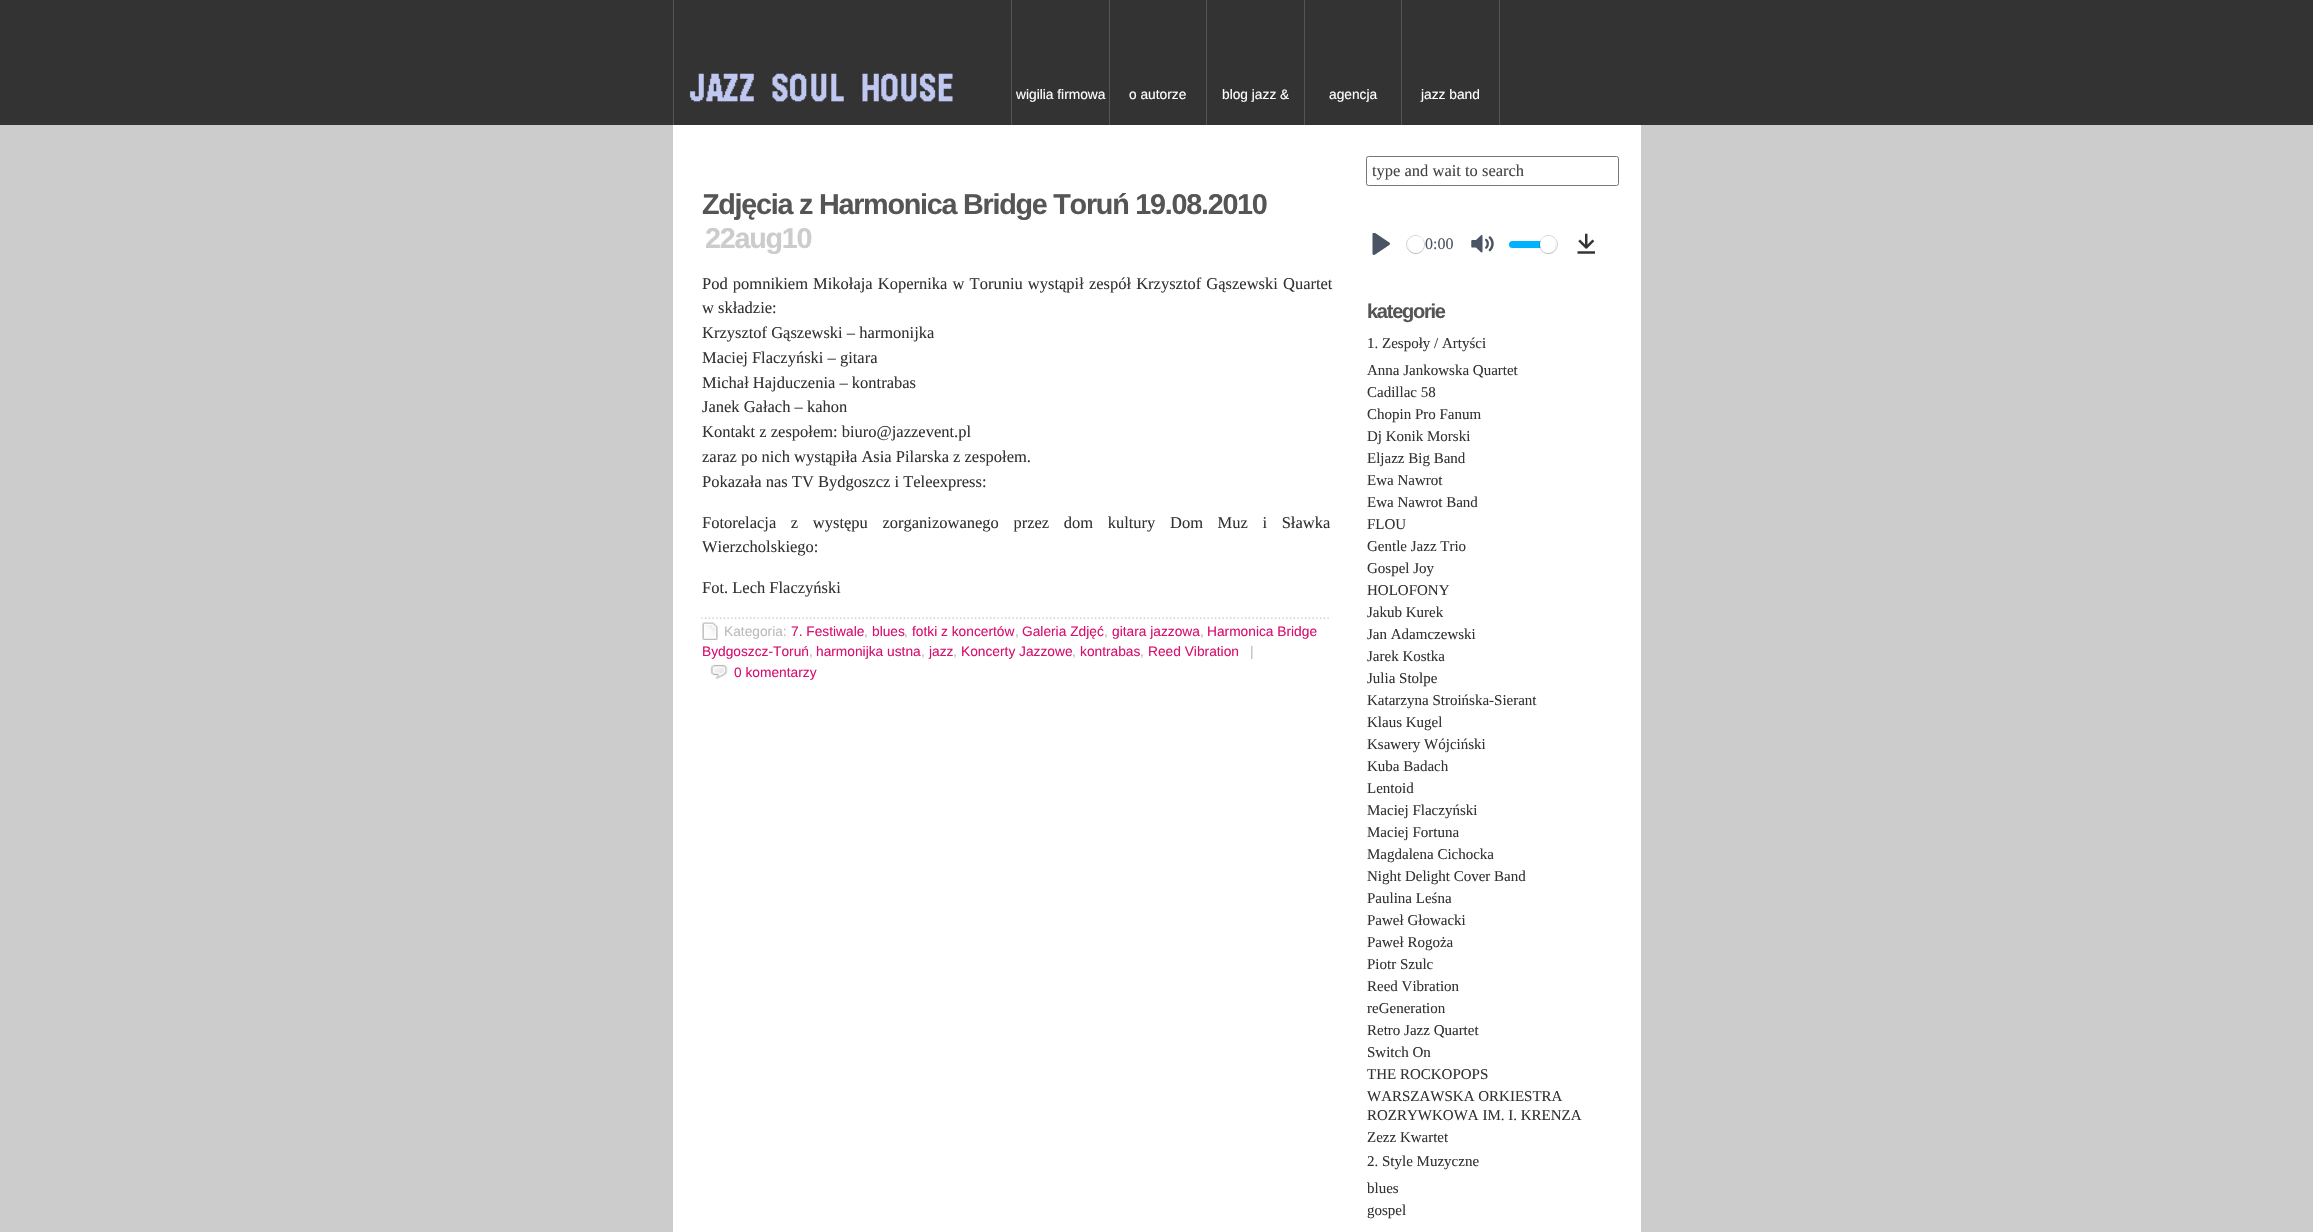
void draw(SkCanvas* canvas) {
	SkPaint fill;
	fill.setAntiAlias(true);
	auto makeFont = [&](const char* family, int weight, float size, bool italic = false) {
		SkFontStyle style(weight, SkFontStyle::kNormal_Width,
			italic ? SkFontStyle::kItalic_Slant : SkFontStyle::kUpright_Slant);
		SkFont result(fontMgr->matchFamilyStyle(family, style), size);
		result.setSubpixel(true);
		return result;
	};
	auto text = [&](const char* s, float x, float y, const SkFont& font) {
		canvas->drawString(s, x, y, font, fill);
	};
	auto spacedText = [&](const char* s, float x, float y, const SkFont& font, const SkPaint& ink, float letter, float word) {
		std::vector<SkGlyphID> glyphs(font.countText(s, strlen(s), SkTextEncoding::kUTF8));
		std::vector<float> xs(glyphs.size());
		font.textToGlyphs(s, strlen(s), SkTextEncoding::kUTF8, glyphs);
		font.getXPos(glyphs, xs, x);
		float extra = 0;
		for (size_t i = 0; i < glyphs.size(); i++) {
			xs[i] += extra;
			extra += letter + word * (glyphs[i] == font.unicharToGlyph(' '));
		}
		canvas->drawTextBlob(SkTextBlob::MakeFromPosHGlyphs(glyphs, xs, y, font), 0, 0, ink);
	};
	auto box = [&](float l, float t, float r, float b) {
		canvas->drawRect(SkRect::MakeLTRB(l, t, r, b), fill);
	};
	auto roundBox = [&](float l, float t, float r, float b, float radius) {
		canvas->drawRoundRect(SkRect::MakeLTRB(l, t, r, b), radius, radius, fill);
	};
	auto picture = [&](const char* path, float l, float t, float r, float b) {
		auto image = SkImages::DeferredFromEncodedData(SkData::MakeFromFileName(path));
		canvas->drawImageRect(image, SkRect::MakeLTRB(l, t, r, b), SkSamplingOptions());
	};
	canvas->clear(0xFFCCCCCC);
	picture("image0.png", 0, 0, 2313, 125);
	fill.setColor(0xFFFFFFFF);
	box(673, 125, 1641, 1232);
	fill.setColor(0xFF555555);
	box(673, 0, 674, 125);
	box(1011, 0, 1012, 125);
	picture("image1.png", 689, 73, 953, 102);
	box(1109, 0, 1110, 125);
	box(1206, 0, 1207, 125);
	box(1304, 0, 1305, 125);
	box(1401, 0, 1402, 125);
	box(1499, 0, 1500, 125);
	picture("image2.png", 701, 617, 1332, 619);
	picture("image3.png", 702, 622, 718, 640);
	picture("image4.png", 710, 664, 728, 679);
	fill.setStyle(SkPaint::kStroke_Style);
	fill.setStrokeWidth(1);
	fill.setColor(0xFF767676);
	canvas->drawRoundRect(SkRect::MakeLTRB(1366.5f, 156.5f, 1618.5f, 185.5f), 2, 2, fill);
	picture("image5.png", 1372, 233, 1390, 255);
	fill.setColor(0x3323282F);
	canvas->drawCircle(1415.5f, 244.5f, 9, fill);
	fill.setStyle(SkPaint::kFill_Style);
	fill.setColor(0x2623282F);
	fill.setMaskFilter(SkMaskFilter::MakeBlur(kNormal_SkBlurStyle, 0.5f));
	canvas->drawRoundRect(SkRect::MakeLTRB(1408, 238, 1424, 254), 8, 8, fill);
	fill.setMaskFilter(nullptr);
	fill.setColor(0xFFFFFFFF);
	roundBox(1408, 236, 1424, 253, 8);
	picture("image6.png", 1471, 235, 1494, 253);
	fill.setColor(0xFF00B2FF);
	roundBox(1509, 241, 1556, 248, 3.5f);
	fill.setStyle(SkPaint::kStroke_Style);
	fill.setColor(0x3323282F);
	canvas->drawCircle(1548.5f, 244.5f, 9, fill);
	fill.setStyle(SkPaint::kFill_Style);
	fill.setColor(0x2623282F);
	fill.setMaskFilter(SkMaskFilter::MakeBlur(kNormal_SkBlurStyle, 0.5f));
	canvas->drawRoundRect(SkRect::MakeLTRB(1540, 238, 1556, 254), 8, 8, fill);
	fill.setMaskFilter(nullptr);
	fill.setColor(0xFFFFFFFF);
	roundBox(1540, 236, 1556, 253, 8);
	picture("image7.png", 1577, 233, 1595, 254);
	auto font1 = makeFont("Liberation Sans", 400, 13.75f);
	text("wigilia firmowa", 1016, 99, font1);
	text("o autorze", 1129, 99, font1);
	text("blog jazz &", 1222, 99, font1);
	text("agencja", 1329, 99, font1);
	text("jazz band", 1421, 99, font1);
	auto font2 = makeFont("Liberation Sans", 700, 28.75f);
	fill.setColor(0xFF555555);
	spacedText("Zdjęcia z Harmonica Bridge Toruń 19.08.2010", 702, 214, font2, fill, -1.25f, 0);
	fill.setColor(0xFFCCCCCC);
	spacedText("22aug10", 705, 248, font2, fill, -1.25f, 0);
	auto font3 = makeFont("Liberation Serif", 400, 16.5f);
	fill.setColor(0xFF333333);
	spacedText("Pod pomnikiem Mikołaja Kopernika w Toruniu wystąpił zespół Krzysztof Gąszewski Quartet", 702, 289, font3, fill, 0, 1);
	text("w składzie:", 702, 313, font3);
	text("Krzysztof Gąszewski – harmonijka", 702, 338, font3);
	text("Maciej Flaczyński – gitara", 702, 363, font3);
	text("Michał Hajduczenia – kontrabas", 702, 388, font3);
	text("Janek Gałach – kahon", 702, 412, font3);
	text("Kontakt z zespołem: biuro@jazzevent.pl", 702, 437, font3);
	text("zaraz po nich wystąpiła Asia Pilarska z zespołem.", 702, 462, font3);
	text("Pokazała nas TV Bydgoszcz i Teleexpress:", 702, 487, font3);
	spacedText("Fotorelacja z występu zorganizowanego przez dom kultury Dom Muz i Sławka", 702, 528, font3, fill, 0, 10.5f);
	text("Wierzcholskiego:", 702, 552, font3);
	text("Fot. Lech Flaczyński", 702, 593, font3);
	fill.setColor(0xFFBBBBBB);
	text("Kategoria:", 724, 636, font1);
	fill.setColor(0xFFDA1071);
	text("7. Festiwale", 791, 636, font1);
	fill.setColor(0xFFBBBBBB);
	text(",", 864, 636, font1);
	fill.setColor(0xFFDA1071);
	text("blues", 872, 636, font1);
	fill.setColor(0xFFBBBBBB);
	text(",", 904, 636, font1);
	fill.setColor(0xFFDA1071);
	text("fotki z koncertów", 912, 636, font1);
	fill.setColor(0xFFBBBBBB);
	text(",", 1015, 636, font1);
	fill.setColor(0xFFDA1071);
	text("Galeria Zdjęć", 1022, 636, font1);
	fill.setColor(0xFFBBBBBB);
	text(",", 1104, 636, font1);
	fill.setColor(0xFFDA1071);
	text("gitara jazzowa", 1112, 636, font1);
	fill.setColor(0xFFBBBBBB);
	text(",", 1200, 636, font1);
	fill.setColor(0xFFDA1071);
	text("Harmonica Bridge", 1207, 636, font1);
	text("Bydgoszcz-Toruń", 702, 656, font1);
	fill.setColor(0xFFBBBBBB);
	text(",", 809, 656, font1);
	fill.setColor(0xFFDA1071);
	text("harmonijka ustna", 816, 656, font1);
	fill.setColor(0xFFBBBBBB);
	text(",", 921, 656, font1);
	fill.setColor(0xFFDA1071);
	text("jazz", 929, 656, font1);
	fill.setColor(0xFFBBBBBB);
	text(",", 953, 656, font1);
	fill.setColor(0xFFDA1071);
	text("Koncerty Jazzowe", 961, 656, font1);
	fill.setColor(0xFFBBBBBB);
	text(",", 1072, 656, font1);
	fill.setColor(0xFFDA1071);
	text("kontrabas", 1080, 656, font1);
	fill.setColor(0xFFBBBBBB);
	text(",", 1140, 656, font1);
	fill.setColor(0xFFDA1071);
	text("Reed Vibration", 1148, 656, font1);
	fill.setColor(0xFFBBBBBB);
	text("|", 1250, 656, font1);
	fill.setColor(0xFFDA1071);
	text("0 komentarzy", 734, 677, font1);
	fill.setColor(0xFF444444);
	text("type and wait to search", 1372, 176, font3);
	auto font4 = makeFont("Liberation Serif", 400, 16);
	fill.setColor(0xFF4A5464);
	text("0:00", 1425, 249, font4);
	auto font5 = makeFont("Liberation Sans", 700, 20);
	fill.setColor(0xFF555555);
	spacedText("kategorie", 1367, 318, font5, fill, -1.25f, 0);
	auto font6 = makeFont("Liberation Serif", 400, 15);
	fill.setColor(0xFF333333);
	text("1. Zespoły / Artyści", 1367, 348, font6);
	text("Anna Jankowska Quartet", 1367, 375, font6);
	text("Cadillac 58", 1367, 397, font6);
	text("Chopin Pro Fanum", 1367, 419, font6);
	text("Dj Konik Morski", 1367, 441, font6);
	text("Eljazz Big Band", 1367, 463, font6);
	text("Ewa Nawrot", 1367, 485, font6);
	text("Ewa Nawrot Band", 1367, 507, font6);
	text("FLOU", 1367, 529, font6);
	text("Gentle Jazz Trio", 1367, 551, font6);
	text("Gospel Joy", 1367, 573, font6);
	text("HOLOFONY", 1367, 595, font6);
	text("Jakub Kurek", 1367, 617, font6);
	text("Jan Adamczewski", 1367, 639, font6);
	text("Jarek Kostka", 1367, 661, font6);
	text("Julia Stolpe", 1367, 683, font6);
	text("Katarzyna Stroińska-Sierant", 1367, 705, font6);
	text("Klaus Kugel", 1367, 727, font6);
	text("Ksawery Wójciński", 1367, 749, font6);
	text("Kuba Badach", 1367, 771, font6);
	text("Lentoid", 1367, 793, font6);
	text("Maciej Flaczyński", 1367, 815, font6);
	text("Maciej Fortuna", 1367, 837, font6);
	text("Magdalena Cichocka", 1367, 859, font6);
	text("Night Delight Cover Band", 1367, 881, font6);
	text("Paulina Leśna", 1367, 903, font6);
	text("Paweł Głowacki", 1367, 925, font6);
	text("Paweł Rogoża", 1367, 947, font6);
	text("Piotr Szulc", 1367, 969, font6);
	text("Reed Vibration", 1367, 991, font6);
	text("reGeneration", 1367, 1013, font6);
	text("Retro Jazz Quartet", 1367, 1035, font6);
	text("Switch On", 1367, 1057, font6);
	text("THE ROCKOPOPS", 1367, 1079, font6);
	text("WARSZAWSKA ORKIESTRA", 1367, 1101, font6);
	text("ROZRYWKOWA IM. I. KRENZA", 1367, 1120, font6);
	text("Zezz Kwartet", 1367, 1142, font6);
	text("2. Style Muzyczne", 1367, 1166, font6);
	text("blues", 1367, 1193, font6);
	text("gospel", 1367, 1215, font6);
}
